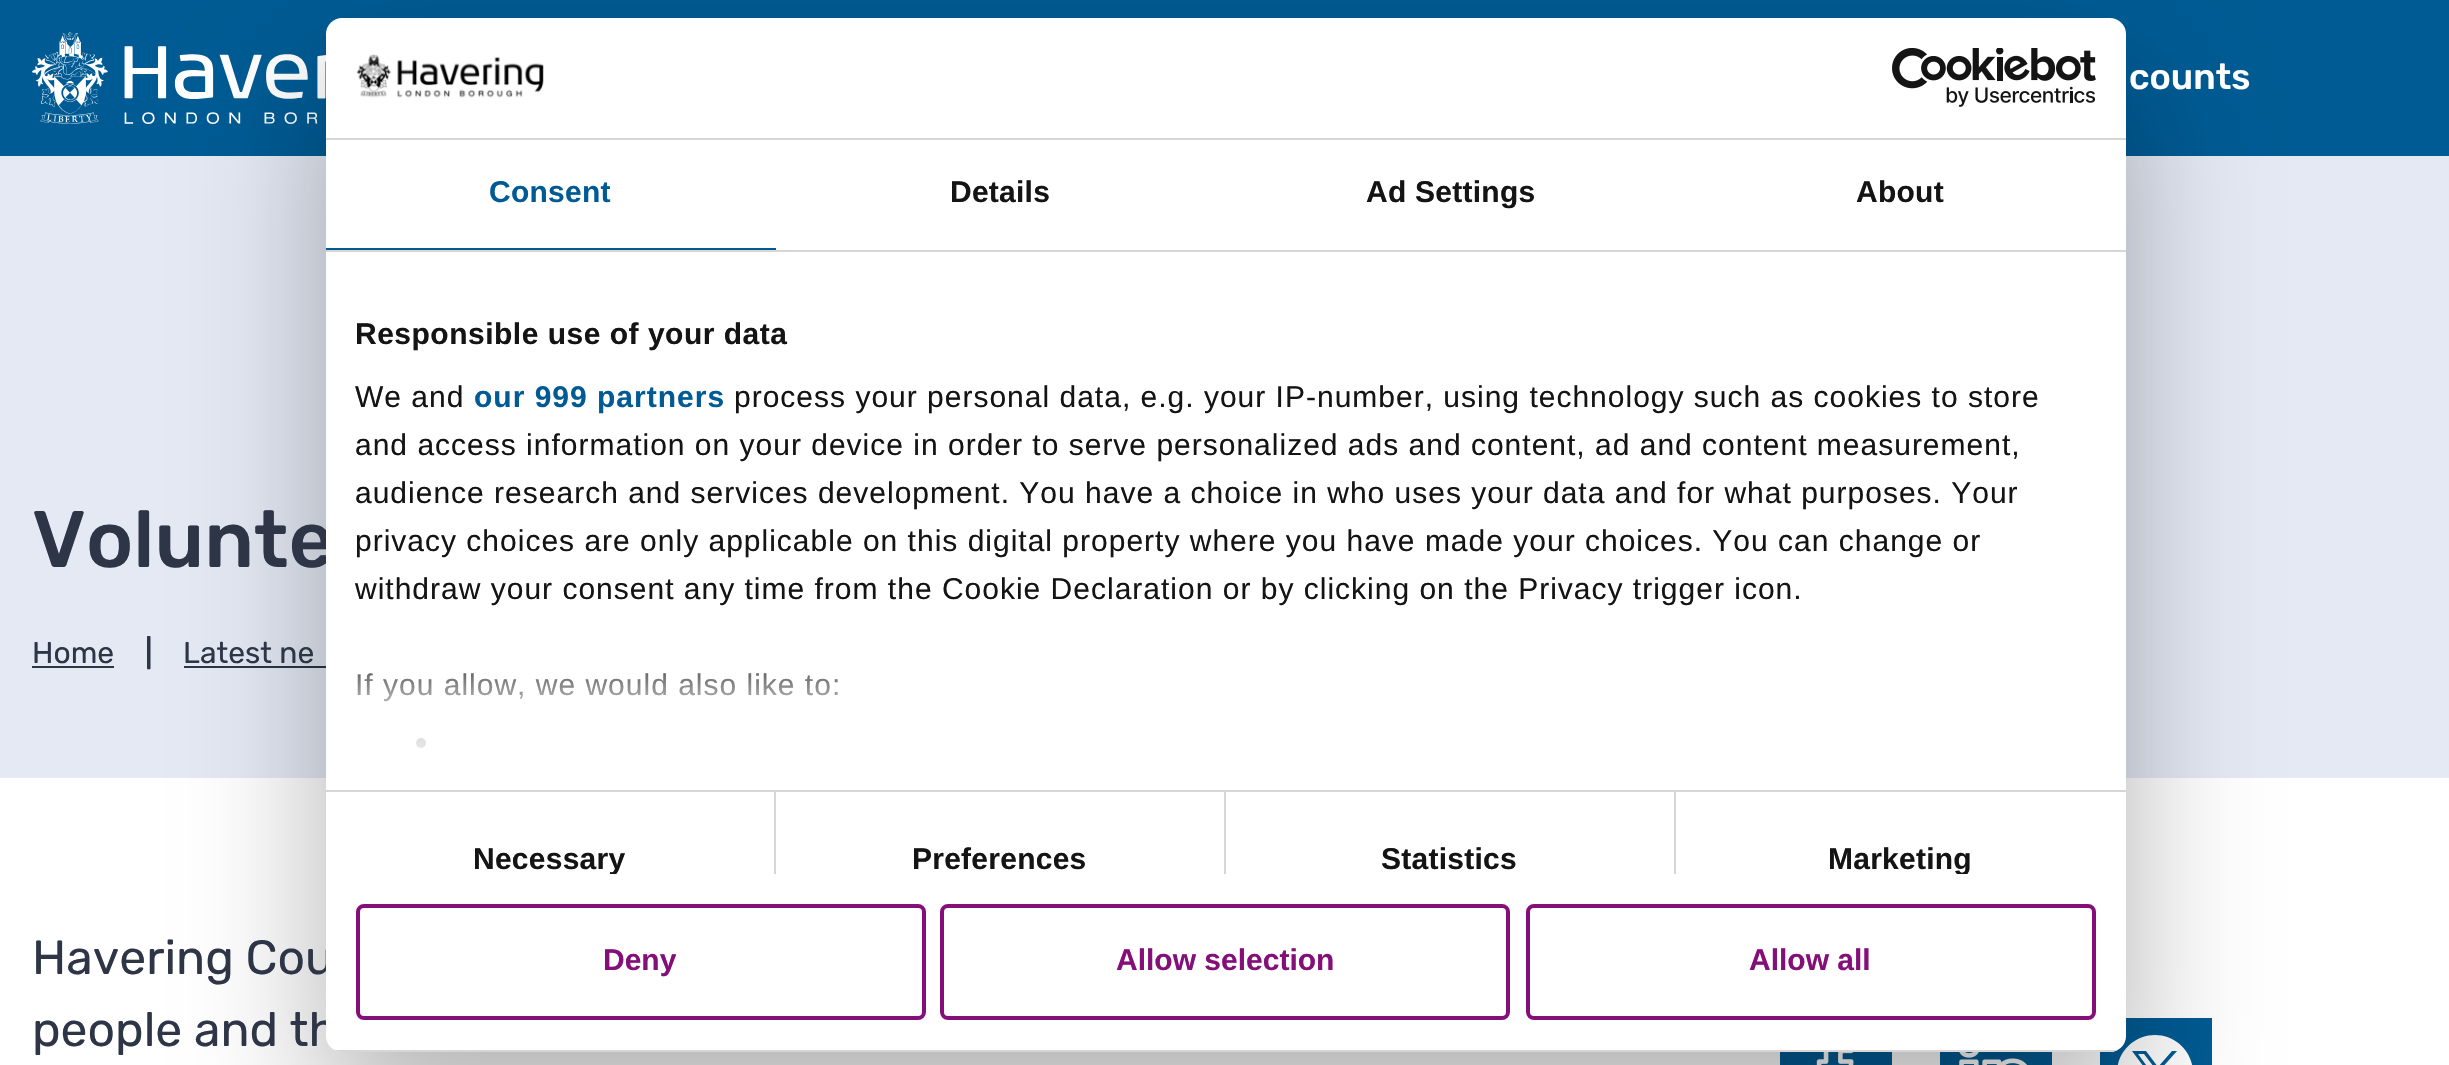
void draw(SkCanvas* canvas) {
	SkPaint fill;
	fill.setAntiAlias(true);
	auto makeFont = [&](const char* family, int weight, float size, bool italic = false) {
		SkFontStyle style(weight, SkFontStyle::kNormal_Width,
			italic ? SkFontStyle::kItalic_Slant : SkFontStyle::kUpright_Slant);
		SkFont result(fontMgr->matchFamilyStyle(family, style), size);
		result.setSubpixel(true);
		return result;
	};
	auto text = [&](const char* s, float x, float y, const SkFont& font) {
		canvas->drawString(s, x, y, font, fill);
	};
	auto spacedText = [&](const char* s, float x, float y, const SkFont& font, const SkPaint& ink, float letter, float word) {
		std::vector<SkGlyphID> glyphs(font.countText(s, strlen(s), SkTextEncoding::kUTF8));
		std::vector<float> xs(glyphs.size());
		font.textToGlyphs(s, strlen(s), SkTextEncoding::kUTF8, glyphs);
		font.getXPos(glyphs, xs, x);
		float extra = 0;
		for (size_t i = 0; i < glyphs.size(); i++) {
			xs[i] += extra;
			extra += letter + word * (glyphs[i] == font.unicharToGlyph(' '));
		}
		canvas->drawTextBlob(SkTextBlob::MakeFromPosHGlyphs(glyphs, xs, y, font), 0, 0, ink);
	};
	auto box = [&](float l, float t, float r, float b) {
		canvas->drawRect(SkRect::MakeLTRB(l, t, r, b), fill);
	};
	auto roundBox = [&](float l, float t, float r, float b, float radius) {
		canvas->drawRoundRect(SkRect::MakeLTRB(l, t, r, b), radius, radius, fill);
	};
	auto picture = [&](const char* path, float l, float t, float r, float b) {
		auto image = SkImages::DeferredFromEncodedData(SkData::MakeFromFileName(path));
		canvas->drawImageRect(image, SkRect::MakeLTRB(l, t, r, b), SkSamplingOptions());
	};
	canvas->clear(0xFFFFFFFF);
	fill.setColor(0xFF005B94);
	box(0, 0, 2449, 156);
	picture("image0.png", 32, 32, 326, 124);
	fill.setColor(0xFFE4E9F4);
	box(0, 156, 2449, 778);
	fill.setColor(0xFF2D3547);
	box(32, 666, 114, 668);
	box(184, 666, 326, 668);
	fill.setColor(0xFF005B94);
	box(1780, 1052, 1892, 1065);
	picture("image1.png", 1816, 1052, 1854, 1065);
	box(1940, 1052, 2052, 1065);
	picture("image2.png", 1959, 1052, 2027, 1065);
	box(2100, 1018, 2212, 1065);
	fill.setColor(0xFFFFFFFF);
	canvas->drawPath(SkPathBuilder().moveTo(2155, 1035).cubicTo(2134, 1035, 2117, 1052, 2117, 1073).cubicTo(2117, 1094, 2134, 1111, 2155, 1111).cubicTo(2176, 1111, 2193, 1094, 2193, 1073).cubicTo(2193, 1052, 2176, 1035, 2155, 1035).close().moveTo(2165, 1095).lineTo(2152, 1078).lineTo(2136, 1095).lineTo(2132, 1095).lineTo(2150, 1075).lineTo(2132, 1051).lineTo(2146, 1051).lineTo(2158, 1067).lineTo(2172, 1051).lineTo(2177, 1051).lineTo(2160, 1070).lineTo(2179, 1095).close().moveTo(2144, 1054).lineTo(2173, 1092).lineTo(2166, 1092).lineTo(2138, 1054).close().detach(), fill);
	fill.setColor(0x4D000000);
	fill.setMaskFilter(SkMaskFilter::MakeBlur(kNormal_SkBlurStyle, 68));
	canvas->drawRoundRect(SkRect::MakeLTRB(326, 82, 2126, 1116), 16, 16, fill);
	fill.setMaskFilter(nullptr);
	auto font1 = makeFont("Rubik", 500, 36);
	fill.setColor(0xFFFFFFFF);
	text("counts", 2129, 89, font1);
	auto font2 = makeFont("Rubik", 500, 80);
	fill.setColor(0xFF2D3547);
	text("Volunte", 32, 567, font2);
	auto font3 = makeFont("Rubik", 400, 30);
	text("Home", 32, 663, font3);
	auto font4 = makeFont("Rubik", 500, 30);
	text("|", 145, 663, font4);
	text("Latest ne", 183, 663, font3);
	auto font5 = makeFont("Rubik", 400, 48);
	text("Havering Cou", 32, 974, font5);
	text("people and th", 32, 1046, font5);
	fill.setColor(0xFFFFFFFF);
	roundBox(326, 18, 2126, 1052, 16);
	fill.setColor(0xFFD6D6D6);
	box(326, 138, 2126, 140);
	picture("image3.png", 356, 54, 544, 98);
	picture("image4.png", 1892, 48, 2096, 107);
	box(326, 250, 2126, 252);
	fill.setColor(0xFF005B94);
	box(326, 248, 776, 250);
	auto font6 = makeFont("Liberation Sans", 700, 30);
	spacedText("Consent", 489, 202, font6, fill, 0.25f, 0);
	fill.setColor(0xFF141414);
	spacedText("Details", 950, 202, font6, fill, 0.25f, 0);
	spacedText("Ad Settings", 1366, 202, font6, fill, 0.25f, 0);
	spacedText("About", 1856, 202, font6, fill, 0.25f, 0);
	fill.setColor(0xFFD6D6D6);
	box(326, 790, 2126, 792);
	fill.setColor(0xFF141414);
	spacedText("Responsible use of your data", 355, 344, font6, fill, 0.5f, 0);
	auto font7 = makeFont("Liberation Sans", 400, 30);
	spacedText("We and", 355, 407, font7, fill, 1, 0);
	fill.setColor(0xFF005B94);
	spacedText("our 999 partners", 474, 407, font6, fill, 1, 0);
	fill.setColor(0xFF141414);
	spacedText("process your personal data, e.g. your IP-number, using technology such as cookies to store", 734, 407, font7, fill, 1, 0);
	spacedText("and access information on your device in order to serve personalized ads and content, ad and content measurement,", 355, 455, font7, fill, 1, 0);
	spacedText("audience research and services development. You have a choice in who uses your data and for what purposes. Your", 355, 503, font7, fill, 1, 0);
	spacedText("privacy choices are only applicable on this digital property where you have made your choices. You can change or", 355, 551, font7, fill, 1, 0);
	spacedText("withdraw your consent any time from the Cookie Declaration or by clicking on the Privacy trigger icon.", 355, 599, font7, fill, 1, 0);
	spacedText("If you allow, we would also like to:", 355, 695, font7, fill, 1, 0);
	canvas->drawCircle(421, 743, 5, fill);
	{
		const SkColor colors[] = {0xFFFFFFFF, 0xCCFFFFFF, 0x00FFFFFF};
		const float stops[] = {0, 0.5f, 1};
		const SkPoint ends[] = {{1213, 789}, {1213, 639}};
		fill.setShader(SkGradientShader::MakeLinear(ends, colors, stops, 3, SkTileMode::kClamp));
		fill.setAlpha(255);
	}
	box(357, 673, 838, 748);
	fill.setShader(nullptr);
	fill.setColor(0xFFD6D6D6);
	box(774, 792, 776, 874);
	canvas->save();
	canvas->clipRect(SkRect::MakeLTRB(326, 252, 2126, 874));
	fill.setColor(0xFF141414);
	spacedText("Necessary", 473, 869, font6, fill, 0.25f, 0);
	canvas->restore();
	fill.setColor(0xFFD6D6D6);
	box(1224, 792, 1226, 874);
	fill.setColor(0xFF141414);
	spacedText("Preferences", 912, 869, font6, fill, 0.25f, 0);
	fill.setColor(0xFFD6D6D6);
	box(1674, 792, 1676, 874);
	fill.setColor(0xFF141414);
	spacedText("Statistics", 1381, 869, font6, fill, 0.25f, 0);
	canvas->save();
	canvas->clipRect(SkRect::MakeLTRB(326, 252, 2126, 874));
	spacedText("Marketing", 1828, 869, font6, fill, 0.25f, 0);
	canvas->restore();
	canvas->save();
	canvas->clipPath(SkPathBuilder().moveTo(342, 18).lineTo(2110, 18).cubicTo(2119, 18, 2126, 25, 2126, 34).lineTo(2126, 1036).cubicTo(2126, 1045, 2119, 1052, 2110, 1052).lineTo(342, 1052).cubicTo(333, 1052, 326, 1045, 326, 1036).lineTo(326, 34).cubicTo(326, 25, 333, 18, 342, 18).close().detach(), true);
	fill.setColor(0xFFD6D6D6);
	box(326, 1050, 2126, 1052);
	canvas->restore();
	fill.setStyle(SkPaint::kStroke_Style);
	fill.setStrokeWidth(4);
	fill.setColor(0xFF850F79);
	canvas->drawRoundRect(SkRect::MakeLTRB(358, 906, 924, 1018), 6, 6, fill);
	fill.setStyle(SkPaint::kFill_Style);
	text("Deny", 603, 970, font6);
	fill.setStyle(SkPaint::kStroke_Style);
	canvas->drawRoundRect(SkRect::MakeLTRB(942, 906, 1508, 1018), 6, 6, fill);
	fill.setStyle(SkPaint::kFill_Style);
	text("Allow selection", 1116, 970, font6);
	fill.setStyle(SkPaint::kStroke_Style);
	canvas->drawRoundRect(SkRect::MakeLTRB(1528, 906, 2094, 1018), 6, 6, fill);
	fill.setStyle(SkPaint::kFill_Style);
	text("Allow all", 1749, 970, font6);
}
